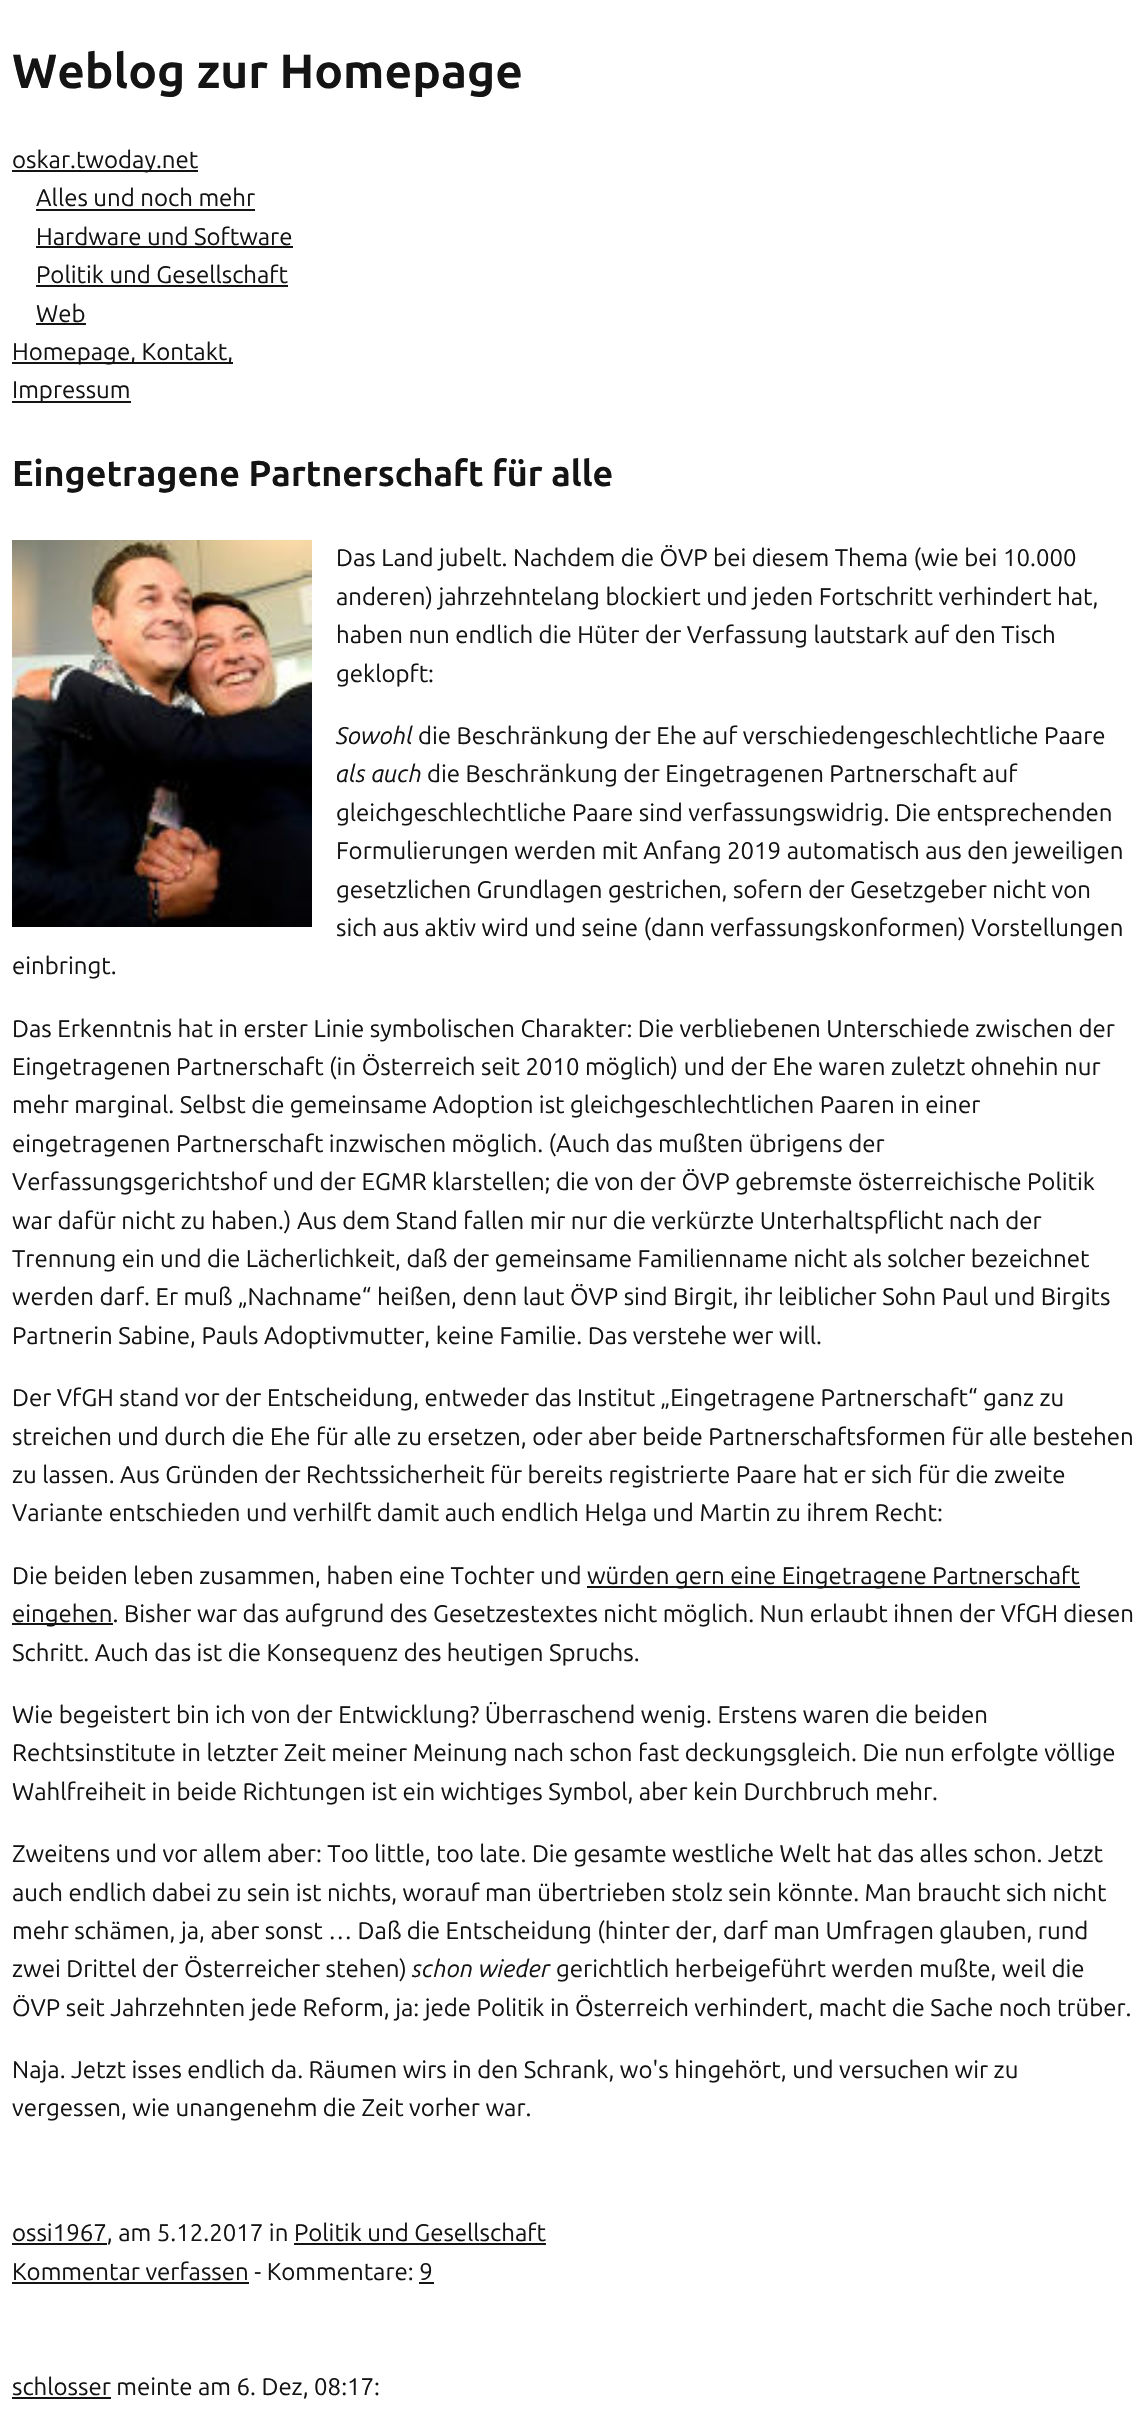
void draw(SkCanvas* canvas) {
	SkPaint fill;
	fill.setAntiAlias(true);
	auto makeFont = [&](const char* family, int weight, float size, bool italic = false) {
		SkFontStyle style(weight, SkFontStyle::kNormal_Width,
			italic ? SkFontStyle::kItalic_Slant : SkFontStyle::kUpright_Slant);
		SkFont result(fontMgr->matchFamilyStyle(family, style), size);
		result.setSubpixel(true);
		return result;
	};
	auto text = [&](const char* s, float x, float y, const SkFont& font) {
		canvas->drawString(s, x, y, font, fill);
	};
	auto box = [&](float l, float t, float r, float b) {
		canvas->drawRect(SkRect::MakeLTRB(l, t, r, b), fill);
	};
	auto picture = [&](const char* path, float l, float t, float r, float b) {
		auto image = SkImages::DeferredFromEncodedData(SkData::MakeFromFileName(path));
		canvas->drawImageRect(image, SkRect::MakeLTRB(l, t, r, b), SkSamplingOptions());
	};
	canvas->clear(0xFFFFFFFF);
	fill.setColor(0xFF141414);
	box(12, 170, 198, 172);
	box(36, 209, 255, 211);
	box(36, 246, 293, 248);
	box(36, 285, 288, 287);
	box(36, 323, 86, 325);
	box(12, 362, 233, 364);
	box(12, 401, 131, 403);
	picture("image0.png", 12, 540, 312, 927);
	box(587, 1586, 1080, 1588);
	box(12, 1623, 113, 1625);
	box(12, 2243, 107, 2245);
	box(294, 2243, 546, 2245);
	box(12, 2282, 249, 2284);
	box(419, 2282, 434, 2284);
	box(12, 2397, 111, 2399);
	auto font1 = makeFont("Ubuntu", 700, 48);
	text("Weblog zur Homepage", 12, 88, font1);
	auto font2 = makeFont("Ubuntu", 400, 24);
	text("oskar.twoday.net", 12, 168, font2);
	text("Alles und noch mehr", 36, 206, font2);
	text("Hardware und Software", 36, 245, font2);
	text("Politik und Gesellschaft", 36, 283, font2);
	text("Web", 36, 322, font2);
	text("Homepage, Kontakt,", 12, 360, font2);
	text("Impressum", 12, 398, font2);
	auto font3 = makeFont("Ubuntu", 700, 36);
	text("Eingetragene Partnerschaft für alle", 12, 486, font3);
	text("Das Land jubelt. Nachdem die ÖVP bei diesem Thema (wie bei 10.000", 336, 566, font2);
	text("anderen) jahrzehntelang blockiert und jeden Fortschritt verhindert hat,", 336, 605, font2);
	text("haben nun endlich die Hüter der Verfassung lautstark auf den Tisch", 336, 643, font2);
	text("geklopft:", 336, 682, font2);
	auto font4 = makeFont("Ubuntu", 400, 24, true);
	text("Sowohl", 336, 744, font4);
	text("die Beschränkung der Ehe auf verschiedengeschlechtliche Paare", 418, 744, font2);
	text("als auch", 336, 782, font4);
	text("die Beschränkung der Eingetragenen Partnerschaft auf", 427, 782, font2);
	text("gleichgeschlechtliche Paare sind verfassungswidrig. Die entsprechenden", 336, 821, font2);
	text("Formulierungen werden mit Anfang 2019 automatisch aus den jeweiligen", 336, 859, font2);
	text("gesetzlichen Grundlagen gestrichen, sofern der Gesetzgeber nicht von", 336, 898, font2);
	text("sich aus aktiv wird und seine (dann verfassungskonformen) Vorstellungen", 336, 936, font2);
	text("einbringt.", 12, 974, font2);
	text("Das Erkenntnis hat in erster Linie symbolischen Charakter: Die verbliebenen Unterschiede zwischen der", 12, 1037, font2);
	text("Eingetragenen Partnerschaft (in Österreich seit 2010 möglich) und der Ehe waren zuletzt ohnehin nur", 12, 1075, font2);
	text("mehr marginal. Selbst die gemeinsame Adoption ist gleichgeschlechtlichen Paaren in einer", 12, 1113, font2);
	text("eingetragenen Partnerschaft inzwischen möglich. (Auch das mußten übrigens der", 12, 1152, font2);
	text("Verfassungsgerichtshof und der EGMR klarstellen; die von der ÖVP gebremste österreichische Politik", 12, 1190, font2);
	text("war dafür nicht zu haben.) Aus dem Stand fallen mir nur die verkürzte Unterhaltspflicht nach der", 12, 1229, font2);
	text("Trennung ein und die Lächerlichkeit, daß der gemeinsame Familienname nicht als solcher bezeichnet", 12, 1267, font2);
	text("werden darf. Er muß „Nachname“ heißen, denn laut ÖVP sind Birgit, ihr leiblicher Sohn Paul und Birgits", 12, 1305, font2);
	text("Partnerin Sabine, Pauls Adoptivmutter, keine Familie. Das verstehe wer will.", 12, 1344, font2);
	text("Der VfGH stand vor der Entscheidung, entweder das Institut „Eingetragene Partnerschaft“ ganz zu", 12, 1406, font2);
	text("streichen und durch die Ehe für alle zu ersetzen, oder aber beide Partnerschaftsformen für alle bestehen", 12, 1445, font2);
	text("zu lassen. Aus Gründen der Rechtssicherheit für bereits registrierte Paare hat er sich für die zweite", 12, 1483, font2);
	text("Variante entschieden und verhilft damit auch endlich Helga und Martin zu ihrem Recht:", 12, 1521, font2);
	text("Die beiden leben zusammen, haben eine Tochter und", 12, 1584, font2);
	text("würden gern eine Eingetragene Partnerschaft", 587, 1584, font2);
	text("eingehen. Bisher war das aufgrund des Gesetzestextes nicht möglich. Nun erlaubt ihnen der VfGH diesen", 12, 1622, font2);
	text("Schritt. Auch das ist die Konsequenz des heutigen Spruchs.", 12, 1661, font2);
	text("Wie begeistert bin ich von der Entwicklung? Überraschend wenig. Erstens waren die beiden", 12, 1723, font2);
	text("Rechtsinstitute in letzter Zeit meiner Meinung nach schon fast deckungsgleich. Die nun erfolgte völlige", 12, 1761, font2);
	text("Wahlfreiheit in beide Richtungen ist ein wichtiges Symbol, aber kein Durchbruch mehr.", 12, 1800, font2);
	text("Zweitens und vor allem aber: Too little, too late. Die gesamte westliche Welt hat das alles schon. Jetzt", 12, 1862, font2);
	text("auch endlich dabei zu sein ist nichts, worauf man übertrieben stolz sein könnte. Man braucht sich nicht", 12, 1901, font2);
	text("mehr schämen, ja, aber sonst … Daß die Entscheidung (hinter der, darf man Umfragen glauben, rund", 12, 1939, font2);
	text("zwei Drittel der Österreicher stehen)", 12, 1977, font2);
	text("schon wieder", 412, 1977, font4);
	text("gerichtlich herbeigeführt werden mußte, weil die", 556, 1977, font2);
	text("ÖVP seit Jahrzehnten jede Reform, ja: jede Politik in Österreich verhindert, macht die Sache noch trüber.", 12, 2016, font2);
	text("Naja. Jetzt isses endlich da. Räumen wirs in den Schrank, wo's hingehört, und versuchen wir zu", 12, 2078, font2);
	text("vergessen, wie unangenehm die Zeit vorher war.", 12, 2116, font2);
	text("ossi1967, am 5.12.2017 in Politik und Gesellschaft", 12, 2241, font2);
	text("Kommentar verfassen - Kommentare: 9", 12, 2280, font2);
	text("schlosser meinte am 6. Dez, 08:17:", 12, 2395, font2);
}
